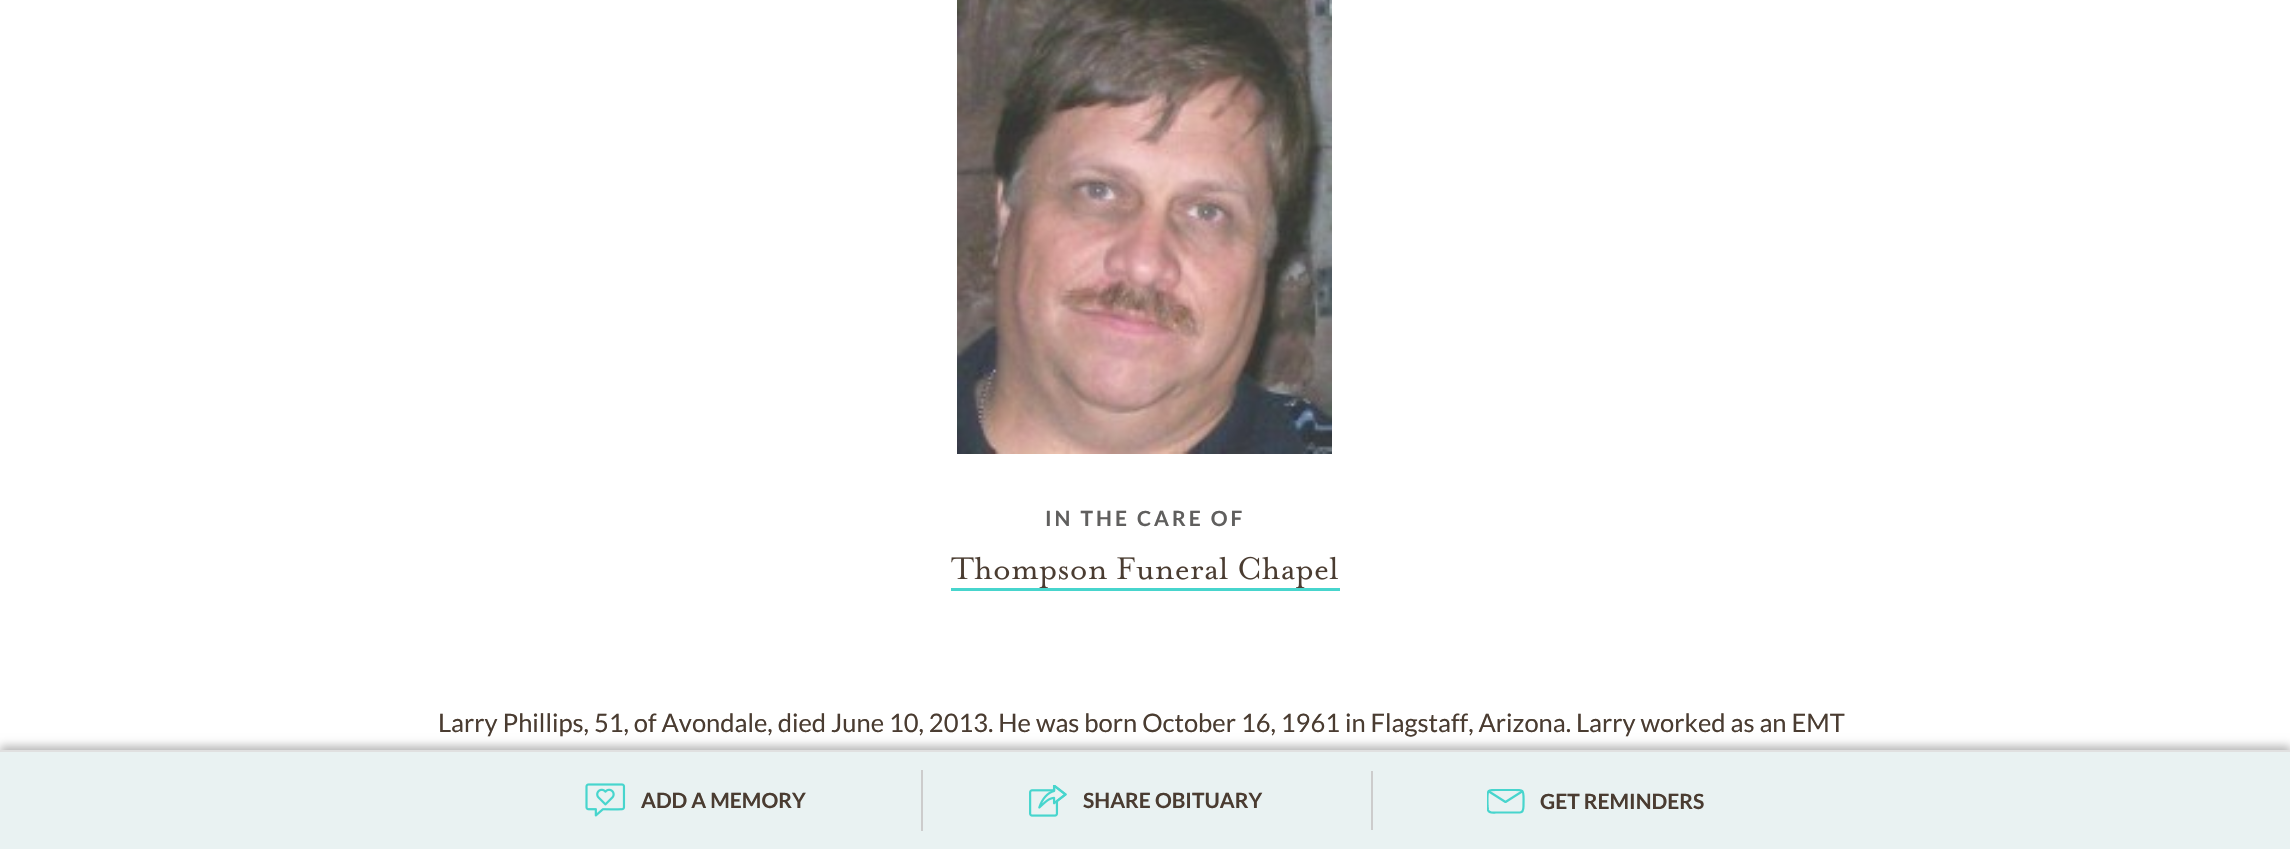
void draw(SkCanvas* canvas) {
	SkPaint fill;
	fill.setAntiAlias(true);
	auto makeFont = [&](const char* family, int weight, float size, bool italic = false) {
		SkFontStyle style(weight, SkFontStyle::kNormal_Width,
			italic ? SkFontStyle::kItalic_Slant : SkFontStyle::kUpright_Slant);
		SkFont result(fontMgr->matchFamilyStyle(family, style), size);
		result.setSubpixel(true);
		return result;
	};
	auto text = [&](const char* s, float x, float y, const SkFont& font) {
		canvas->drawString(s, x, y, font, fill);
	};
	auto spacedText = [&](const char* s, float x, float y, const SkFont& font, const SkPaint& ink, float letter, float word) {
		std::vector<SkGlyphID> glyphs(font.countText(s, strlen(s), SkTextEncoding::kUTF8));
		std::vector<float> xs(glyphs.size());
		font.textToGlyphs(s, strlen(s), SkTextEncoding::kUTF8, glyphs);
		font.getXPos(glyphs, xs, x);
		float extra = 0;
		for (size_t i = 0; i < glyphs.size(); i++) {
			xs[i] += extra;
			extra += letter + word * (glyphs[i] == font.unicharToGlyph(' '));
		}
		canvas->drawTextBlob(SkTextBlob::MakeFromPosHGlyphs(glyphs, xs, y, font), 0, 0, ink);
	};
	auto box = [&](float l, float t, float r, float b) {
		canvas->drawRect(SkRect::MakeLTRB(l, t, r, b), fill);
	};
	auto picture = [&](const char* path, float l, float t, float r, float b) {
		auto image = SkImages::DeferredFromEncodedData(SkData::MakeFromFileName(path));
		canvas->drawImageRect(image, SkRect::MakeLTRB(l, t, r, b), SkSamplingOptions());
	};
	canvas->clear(0xFFFFFFFF);
	picture("image0.png", 957, 0, 1332, 454);
	picture("image1.png", 951, 556, 1338, 588);
	fill.setColor(0xFF47D5CD);
	box(951, 588, 1340, 591);
	fill.setColor(0x4A000000);
	fill.setMaskFilter(SkMaskFilter::MakeBlur(kNormal_SkBlurStyle, 4.5f));
	canvas->drawRect(SkRect::MakeLTRB(0, 746, 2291, 845), fill);
	fill.setMaskFilter(nullptr);
	fill.setColor(0xFFE9F2F2);
	box(0, 752, 2290, 849);
	fill.setColor(0xFFE0E0E0);
	box(0, 750, 2290, 752);
	picture("image2.png", 585, 783, 626, 817);
	fill.setColor(0xFFCCCCCC);
	box(921, 770, 923, 831);
	picture("image3.png", 1029, 785, 1067, 817);
	box(1371, 771, 1373, 830);
	canvas->save();
	canvas->clipRect(SkRect::MakeLTRB(1487, 789, 1526, 815));
	fill.setStyle(SkPaint::kStroke_Style);
	fill.setStrokeWidth(2.2f);
	fill.setStrokeCap(SkPaint::kRound_Cap);
	fill.setStrokeJoin(SkPaint::kRound_Join);
	fill.setColor(0xFF47D5CD);
	canvas->drawPath(SkPathBuilder().moveTo(1520, 812.5f).lineTo(1496, 812.5f).cubicTo(1493.5f, 812.5f, 1489, 813.5f, 1488, 810).lineTo(1487.5f, 806).cubicTo(1487.5f, 787, 1485, 790, 1505.5f, 790).cubicTo(1526, 790, 1523.5f, 787, 1523.5f, 806).cubicTo(1523.5f, 809, 1523.5f, 812.5f, 1520, 812.5f).close().detach(), fill);
	canvas->restore();
	canvas->drawPath(SkPathBuilder().moveTo(1522, 791.5f).lineTo(1505.5f, 802).lineTo(1489, 791.5f).detach(), fill);
	auto font1 = makeFont("Lato", 700, 21);
	fill.setStyle(SkPaint::kFill_Style);
	fill.setColor(0xFF605F5E);
	spacedText("IN THE CARE OF", 1045, 526, font1, fill, 3, 0);
	auto font2 = makeFont("Lato", 400, 25.5f);
	fill.setColor(0xFF4A3C31);
	text("Larry Phillips, 51, of Avondale, died June 10, 2013. He was born October 16, 1961 in Flagstaff, Arizona. Larry worked as an EMT", 438, 732, font2);
	text("ADD A MEMORY", 641, 808, font1);
	text("SHARE OBITUARY", 1083, 808, font1);
	text("GET REMINDERS", 1540, 809, font1);
}
